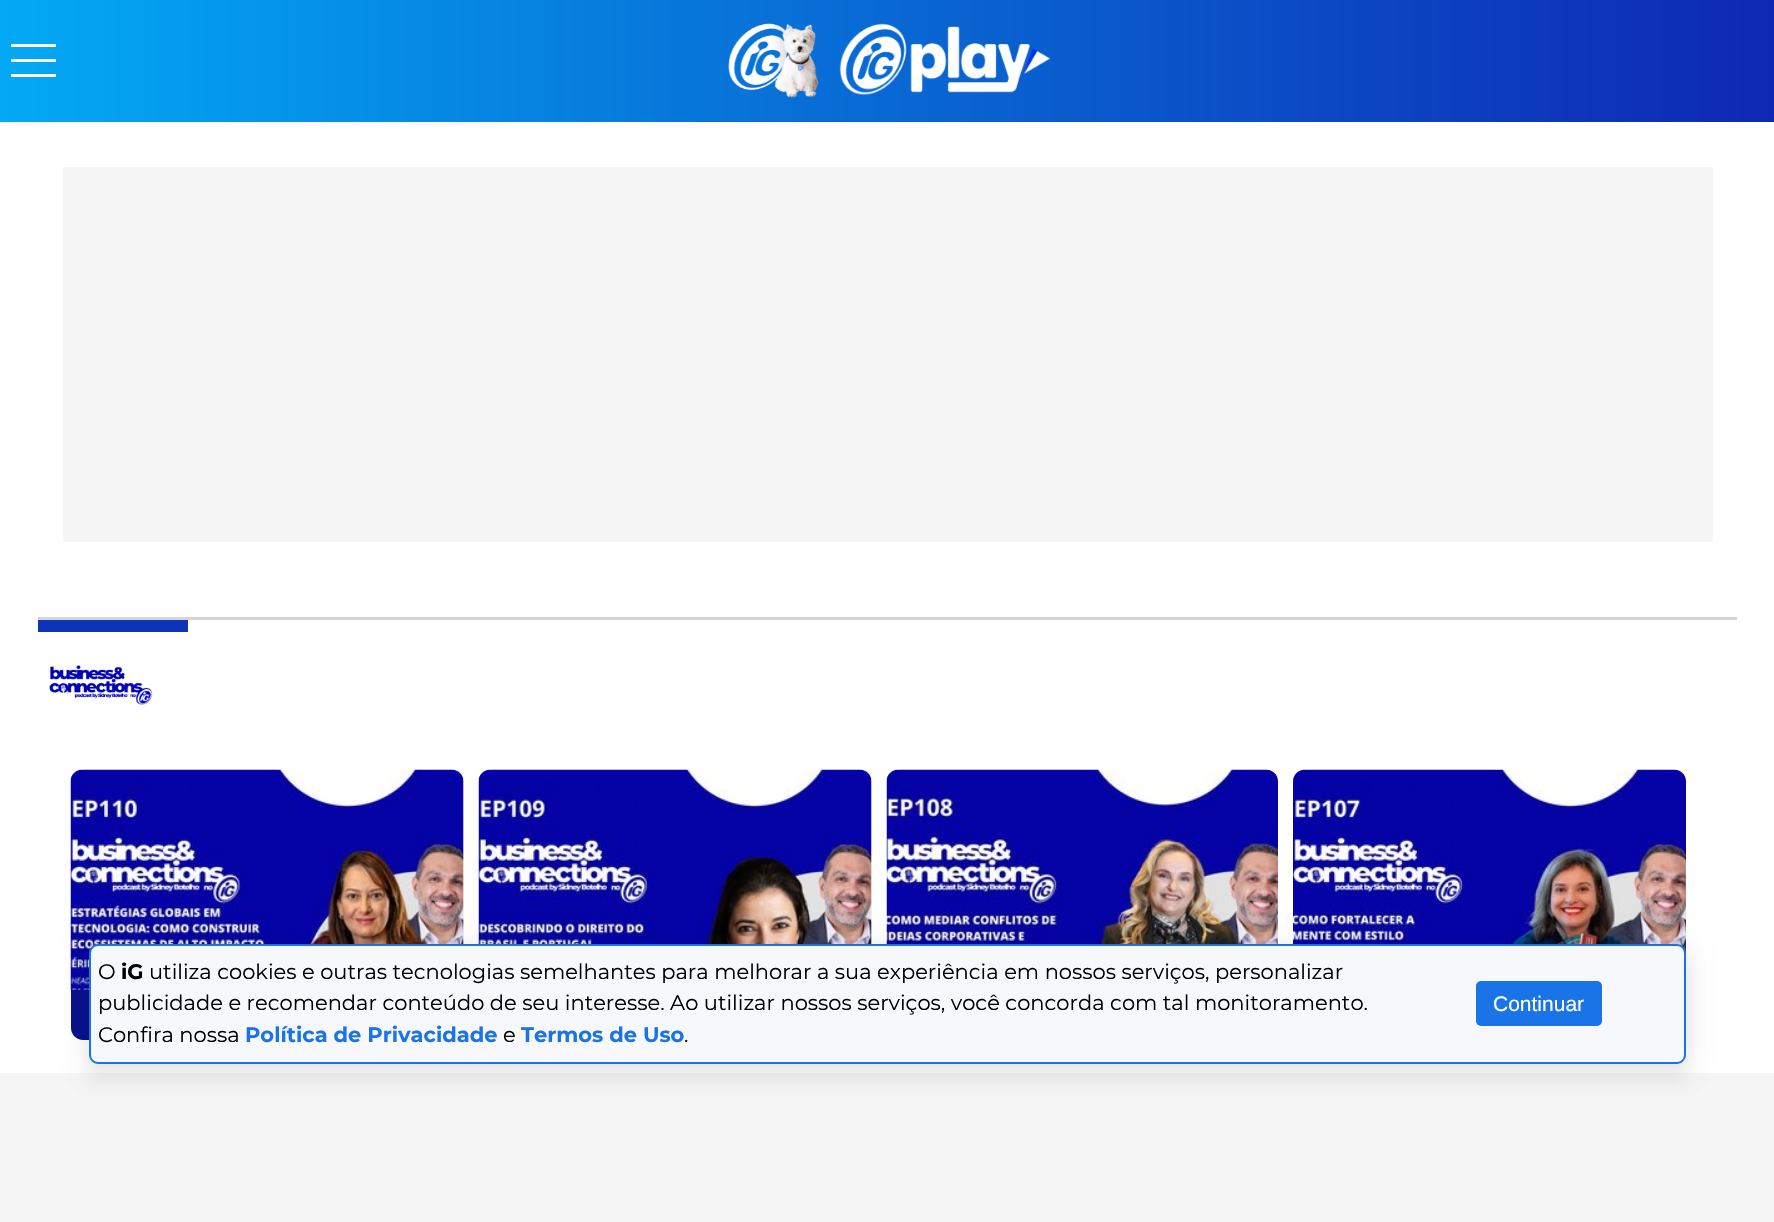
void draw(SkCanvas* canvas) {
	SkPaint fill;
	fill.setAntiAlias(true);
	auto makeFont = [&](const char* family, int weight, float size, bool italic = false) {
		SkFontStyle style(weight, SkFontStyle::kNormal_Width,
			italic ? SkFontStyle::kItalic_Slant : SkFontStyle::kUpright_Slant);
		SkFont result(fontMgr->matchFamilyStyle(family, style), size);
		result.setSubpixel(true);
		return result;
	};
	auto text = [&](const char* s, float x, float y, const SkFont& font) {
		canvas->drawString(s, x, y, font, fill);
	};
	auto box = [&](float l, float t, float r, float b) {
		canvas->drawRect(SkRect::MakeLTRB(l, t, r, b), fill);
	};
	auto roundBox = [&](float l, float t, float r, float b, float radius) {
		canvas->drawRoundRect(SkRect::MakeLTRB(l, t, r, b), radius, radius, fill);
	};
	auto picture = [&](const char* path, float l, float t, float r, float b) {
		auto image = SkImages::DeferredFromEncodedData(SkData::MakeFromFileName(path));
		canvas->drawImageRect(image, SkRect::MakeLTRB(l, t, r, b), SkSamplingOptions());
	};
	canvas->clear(0xFFFFFFFF);
	{
		const SkColor colors[] = {0xFF03A9F4, 0xFF0E28B3};
		const float stops[] = {0, 1};
		const SkPoint ends[] = {{0, 61}, {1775, 61}};
		fill.setShader(SkGradientShader::MakeLinear(ends, colors, stops, 2, SkTileMode::kClamp));
		fill.setAlpha(255);
	}
	box(0, 0, 1774, 122);
	fill.setShader(nullptr);
	fill.setColor(0xFFFFFFFF);
	box(11, 59, 56, 62);
	box(11, 44, 56, 47);
	box(11, 74, 56, 77);
	picture("image0.png", 728, 23, 819, 98);
	picture("image1.png", 839, 23, 1050, 95);
	fill.setColor(0xFFF5F5F5);
	box(0, 1073, 1774, 1222);
	box(63, 167, 1713, 542);
	fill.setColor(0xFFD4D4D4);
	box(38, 617, 1737, 620);
	fill.setColor(0xFF0D33B9);
	box(38, 620, 188, 632);
	picture("image2.png", 49, 665, 153, 705);
	fill.setColor(0xFFF5F5F5);
	canvas->drawPath(SkPathBuilder().moveTo(83, 770).lineTo(452, 770).cubicTo(458.5f, 770, 464, 775.5f, 464, 782).lineTo(464, 990).lineTo(71, 990).lineTo(71, 782).cubicTo(71, 775.5f, 76.5f, 770, 83, 770).close().detach(), fill);
	picture("image3.png", 70, 769, 464, 990);
	fill.setColor(0xFF08108D);
	canvas->drawPath(SkPathBuilder().moveTo(71, 990).lineTo(464, 990).lineTo(464, 1028).cubicTo(464, 1034.5f, 458.5f, 1040, 452, 1040).lineTo(83, 1040).cubicTo(76.5f, 1040, 71, 1034.5f, 71, 1028).close().detach(), fill);
	fill.setColor(0xFFF5F5F5);
	canvas->drawPath(SkPathBuilder().moveTo(491, 770).lineTo(860, 770).cubicTo(866.5f, 770, 872, 775.5f, 872, 782).lineTo(872, 990).lineTo(479, 990).lineTo(479, 782).cubicTo(479, 775.5f, 484.5f, 770, 491, 770).close().detach(), fill);
	picture("image4.png", 478, 769, 872, 944);
	picture("image5.png", 886, 769, 1278, 944);
	picture("image6.png", 1293, 769, 1686, 953);
	fill.setColor(0x0D000000);
	fill.setMaskFilter(SkMaskFilter::MakeBlur(kNormal_SkBlurStyle, 7.5f));
	canvas->drawRoundRect(SkRect::MakeLTRB(86, 956, 1689, 1082), 12, 12, fill);
	fill.setMaskFilter(nullptr);
	fill.setMaskFilter(SkMaskFilter::MakeBlur(kNormal_SkBlurStyle, 12));
	canvas->drawRoundRect(SkRect::MakeLTRB(86, 941, 1689, 1067), 12, 12, fill);
	fill.setMaskFilter(nullptr);
	fill.setColor(0xFFF7F8FB);
	canvas->drawRoundRect(SkRect::MakeLTRB(90, 945, 1685, 1063), 8, 8, fill);
	fill.setStyle(SkPaint::kStroke_Style);
	fill.setStrokeWidth(2);
	fill.setColor(0xFF1B72E6);
	canvas->drawRoundRect(SkRect::MakeLTRB(90, 945, 1685, 1063), 8, 8, fill);
	fill.setStyle(SkPaint::kFill_Style);
	fill.setColor(0xFF1A73E7);
	roundBox(1476, 981, 1602, 1026, 5);
	auto font1 = makeFont("Montserrat", 400, 21);
	fill.setColor(0xFF000000);
	text("O", 98, 979, font1);
	auto font2 = makeFont("Montserrat", 700, 21);
	text("iG", 121, 979, font2);
	text("utiliza cookies e outras tecnologias semelhantes para melhorar a sua experiência em nossos serviços, personalizar", 149, 979, font1);
	text("publicidade e recomendar conteúdo de seu interesse. Ao utilizar nossos serviços, você concorda com tal monitoramento.", 98, 1010, font1);
	text("Confira nossa", 98, 1042, font1);
	fill.setColor(0xFF1A73E7);
	text("Política de Privacidade", 245, 1042, font2);
	fill.setColor(0xFF000000);
	text("e", 503, 1042, font1);
	fill.setColor(0xFF1A73E7);
	text("Termos de Uso", 521, 1042, font2);
	fill.setColor(0xFF000000);
	text(".", 684, 1042, font1);
	auto font3 = makeFont("Liberation Sans", 400, 21);
	fill.setColor(0xFFFFFFFF);
	text("Continuar", 1493, 1011, font3);
}
